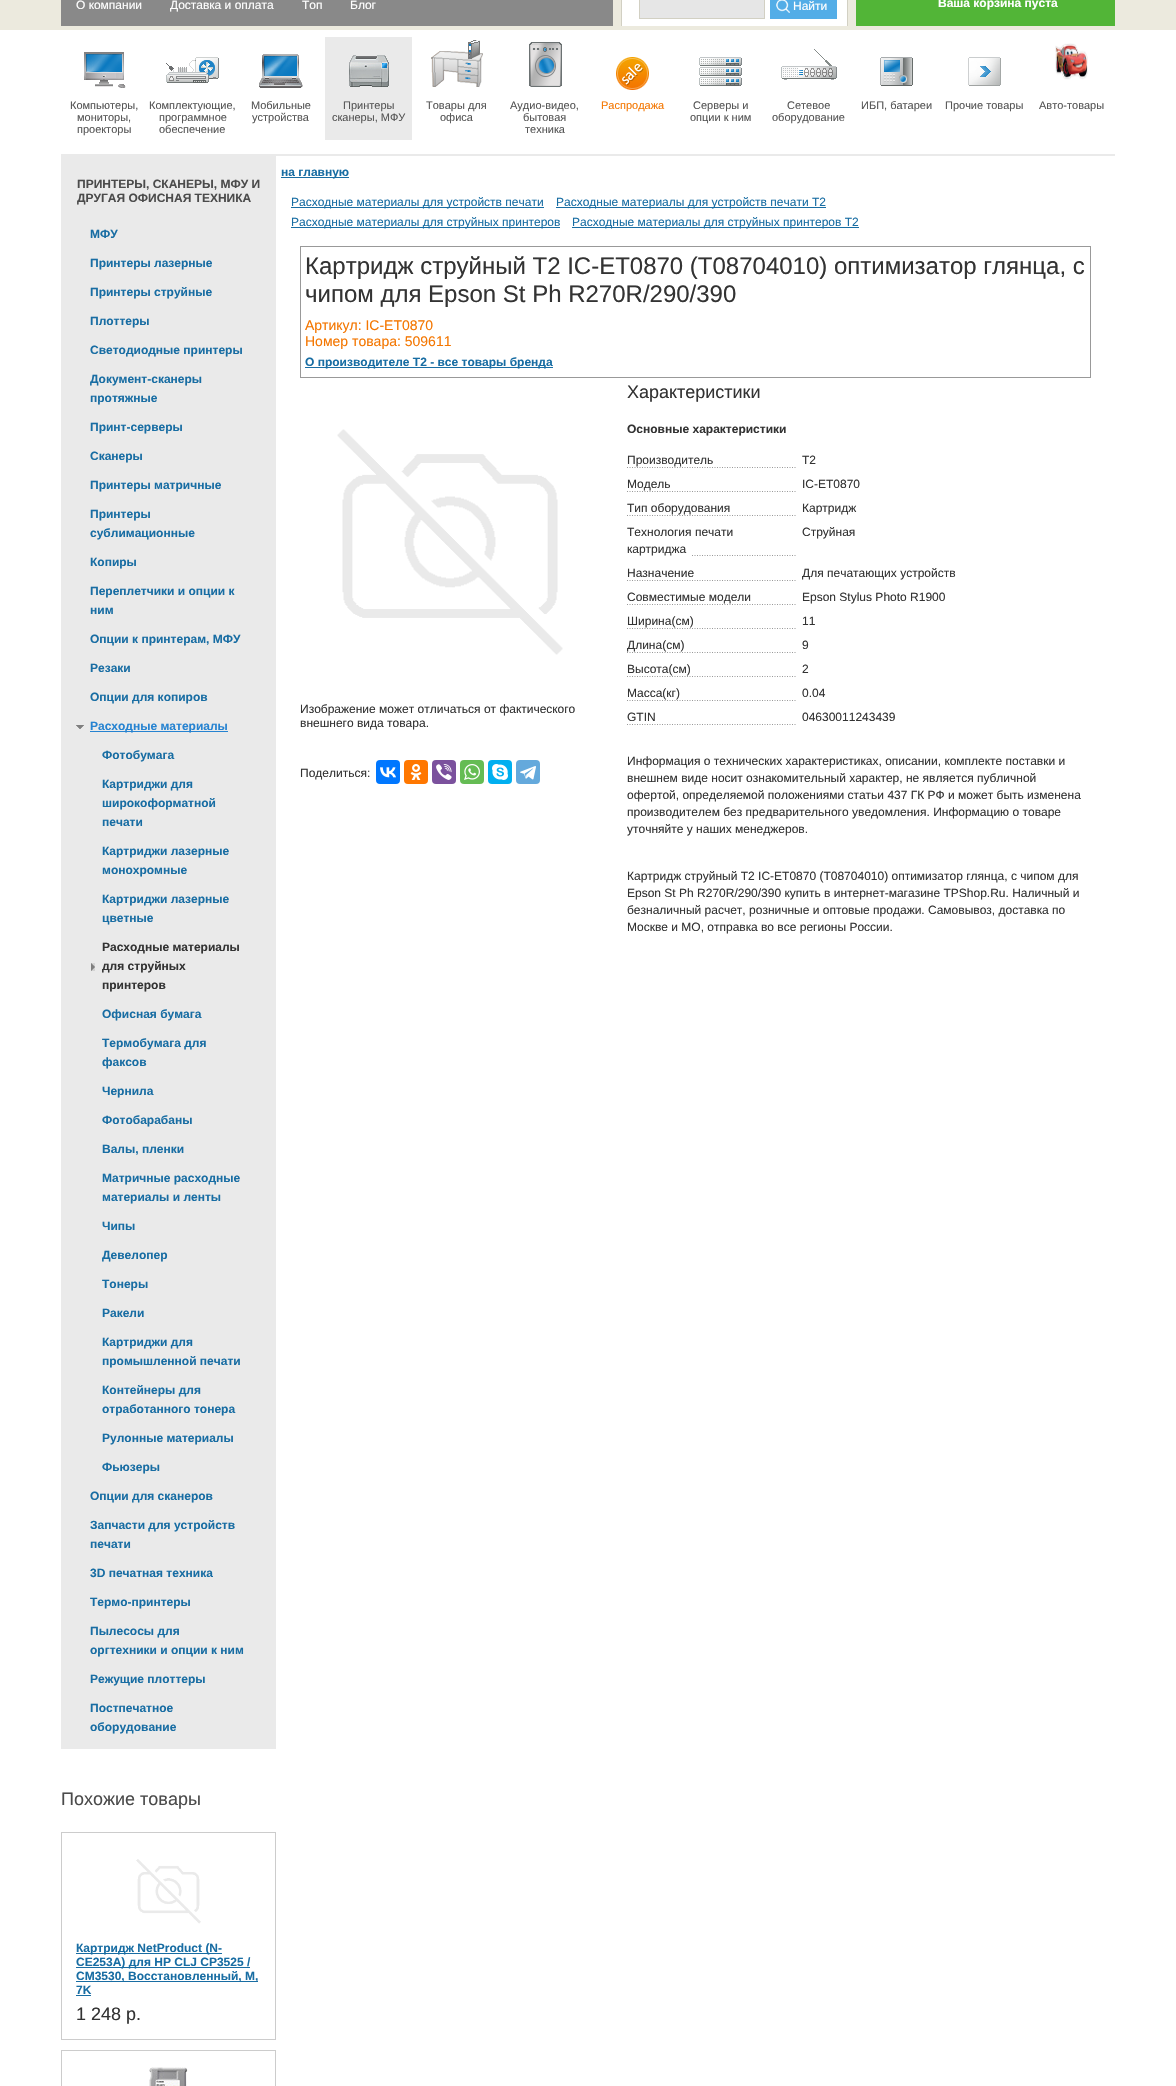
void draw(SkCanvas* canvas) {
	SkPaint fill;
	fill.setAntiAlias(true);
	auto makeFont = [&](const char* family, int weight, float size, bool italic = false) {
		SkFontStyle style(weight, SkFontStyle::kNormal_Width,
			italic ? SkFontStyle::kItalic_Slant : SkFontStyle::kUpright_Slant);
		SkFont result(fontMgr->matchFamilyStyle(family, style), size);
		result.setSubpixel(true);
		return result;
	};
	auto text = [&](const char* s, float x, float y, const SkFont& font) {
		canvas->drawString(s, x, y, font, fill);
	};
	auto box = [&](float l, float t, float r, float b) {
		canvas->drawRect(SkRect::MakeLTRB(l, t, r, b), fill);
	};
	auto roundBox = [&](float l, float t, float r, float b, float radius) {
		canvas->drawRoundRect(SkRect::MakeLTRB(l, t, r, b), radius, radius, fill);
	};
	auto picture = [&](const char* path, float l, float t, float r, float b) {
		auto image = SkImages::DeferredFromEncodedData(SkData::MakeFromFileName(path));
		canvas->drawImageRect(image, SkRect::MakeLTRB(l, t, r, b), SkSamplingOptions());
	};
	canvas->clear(0xFFFFFFFF);
	fill.setColor(0xFFECEADE);
	box(0, 0, 1176, 30);
	fill.setColor(0xFF898989);
	box(61, 0, 613, 26);
	fill.setColor(0xFFFFFFFF);
	box(622, 0, 847, 26);
	fill.setColor(0xFFD2D0C3);
	box(847, 0, 848, 26);
	box(621, 0, 622, 26);
	fill.setColor(0xFFE6E6E6);
	canvas->drawRect(SkRect::MakeLTRB(639.5f, -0.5f, 764.5f, 18.5f), fill);
	fill.setStyle(SkPaint::kStroke_Style);
	fill.setStrokeWidth(1);
	fill.setColor(0xFFD2D0C3);
	canvas->drawRect(SkRect::MakeLTRB(639.5f, -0.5f, 764.5f, 18.5f), fill);
	fill.setStyle(SkPaint::kFill_Style);
	fill.setColor(0xFF53ADE7);
	box(770, 0, 837, 19);
	picture("image0.png", 776, 0, 790, 13);
	fill.setColor(0xFF52B537);
	box(856, 0, 1115, 26);
	picture("image1.png", 84, 52, 126, 88);
	picture("image2.png", 166, 57, 219, 83);
	picture("image3.png", 259, 54, 303, 88);
	fill.setColor(0xFFEAEAEA);
	box(325, 37, 412, 140);
	picture("image4.png", 349, 55, 389, 87);
	picture("image5.png", 431, 40, 483, 87);
	picture("image6.png", 529, 42, 562, 87);
	picture("image7.png", 616, 57, 649, 90);
	picture("image8.png", 699, 57, 742, 86);
	picture("image9.png", 781, 49, 837, 80);
	picture("image10.png", 880, 57, 913, 86);
	picture("image11.png", 968, 57, 1001, 86);
	picture("image12.png", 1055, 43, 1088, 80);
	box(61, 154, 1115, 156);
	box(61, 156, 276, 1749);
	picture("image13.png", 76, 725, 84, 729);
	fill.setColor(0xFF2683D1);
	box(90, 731, 228, 732);
	picture("image14.png", 91, 963, 95, 971);
	fill.setStyle(SkPaint::kStroke_Style);
	fill.setColor(0xFFCCCCCC);
	canvas->drawRect(SkRect::MakeLTRB(61.5f, 1832.5f, 275.5f, 2039.5f), fill);
	picture("image15.png", 136, 1859, 201, 1924);
	fill.setStyle(SkPaint::kFill_Style);
	fill.setColor(0xFF186DA3);
	box(76, 1953, 222, 1954);
	box(76, 1967, 250, 1968);
	box(76, 1981, 258, 1982);
	box(76, 1995, 91, 1996);
	fill.setStyle(SkPaint::kStroke_Style);
	fill.setColor(0xFFCCCCCC);
	canvas->drawRect(SkRect::MakeLTRB(61.5f, 2050.5f, 275.5f, 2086.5f), fill);
	picture("image16.png", 149, 2067, 188, 2086);
	fill.setStyle(SkPaint::kFill_Style);
	fill.setColor(0xFF186DA3);
	box(281, 177, 349, 178);
	box(291, 207, 544, 208);
	box(556, 207, 826, 208);
	box(291, 227, 560, 228);
	box(572, 227, 859, 228);
	fill.setStyle(SkPaint::kStroke_Style);
	fill.setColor(0xFF999999);
	canvas->drawRect(SkRect::MakeLTRB(300.5f, 246.5f, 1090.5f, 377.5f), fill);
	fill.setStyle(SkPaint::kFill_Style);
	fill.setColor(0xFF186DA3);
	box(305, 367, 553, 368);
	picture("image17.png", 337, 429, 563, 655);
	fill.setColor(0xFF0077FF);
	roundBox(376, 760, 400, 784, 4);
	picture("image18.png", 380, 767, 396, 778);
	fill.setColor(0xFFFF7700);
	roundBox(404, 760, 428, 784, 4);
	picture("image19.png", 410, 764, 422, 780);
	fill.setColor(0xFF7B519D);
	roundBox(432, 760, 456, 784, 4);
	picture("image20.png", 436, 764, 452, 780);
	fill.setColor(0xFF65BC54);
	roundBox(460, 760, 484, 784, 4);
	picture("image21.png", 464, 764, 480, 780);
	fill.setColor(0xFF00AFF0);
	roundBox(488, 760, 512, 784, 4);
	picture("image22.png", 492, 764, 508, 780);
	fill.setColor(0xFF64A9DC);
	roundBox(516, 760, 540, 784, 4);
	picture("image23.png", 520, 766, 536, 780);
	picture("image24.png", 627, 467, 796, 468);
	picture("image24.png", 627, 491, 796, 492);
	picture("image24.png", 627, 515, 796, 516);
	picture("image25.png", 691, 555, 796, 556);
	picture("image24.png", 627, 580, 796, 581);
	picture("image24.png", 627, 604, 796, 605);
	picture("image24.png", 627, 628, 796, 629);
	picture("image24.png", 627, 652, 796, 653);
	picture("image24.png", 627, 676, 796, 677);
	picture("image24.png", 627, 700, 796, 701);
	picture("image24.png", 627, 724, 796, 725);
	auto font1 = makeFont("Liberation Sans", 400, 12);
	fill.setColor(0xFFFFFFFF);
	text("О компании", 76, 9, font1);
	text("Доставка и оплата", 170, 9, font1);
	text("Топ", 302, 9, font1);
	text("Блог", 350, 9, font1);
	text("Найти", 793, 10, font1);
	auto font2 = makeFont("Liberation Sans", 700, 12);
	text("Ваша корзина пуста", 938, 7, font2);
	auto font3 = makeFont("Liberation Sans", 400, 11);
	fill.setColor(0xFF555555);
	text("Компьютеры,", 70, 109, font3);
	text("мониторы,", 77, 121, font3);
	text("проекторы", 77, 133, font3);
	text("Комплектующие,", 149, 109, font3);
	text("программное", 159, 121, font3);
	text("обеспечение", 159, 133, font3);
	text("Мобильные", 251, 109, font3);
	text("устройства", 252, 121, font3);
	text("Принтеры", 343, 109, font3);
	text("сканеры, МФУ", 332, 121, font3);
	text("Товары для", 426, 109, font3);
	text("офиса", 440, 121, font3);
	text("Аудио-видео,", 510, 109, font3);
	text("бытовая", 523, 121, font3);
	text("техника", 525, 133, font3);
	fill.setColor(0xFFF47600);
	text("Распродажа", 601, 109, font3);
	fill.setColor(0xFF555555);
	text("Серверы и", 693, 109, font3);
	text("опции к ним", 690, 121, font3);
	text("Сетевое", 787, 109, font3);
	text("оборудование", 772, 121, font3);
	text("ИБП, батареи", 861, 109, font3);
	text("Прочие товары", 945, 109, font3);
	text("Авто-товары", 1039, 109, font3);
	fill.setColor(0xFF4B4B4B);
	text("ПРИНТЕРЫ, СКАНЕРЫ, МФУ И", 77, 188, font2);
	text("ДРУГАЯ ОФИСНАЯ ТЕХНИКА", 77, 202, font2);
	fill.setColor(0xFF186DA3);
	text("МФУ", 90, 238, font2);
	text("Принтеры лазерные", 90, 267, font2);
	text("Принтеры струйные", 90, 296, font2);
	text("Плоттеры", 90, 325, font2);
	text("Светодиодные принтеры", 90, 354, font2);
	text("Документ-сканеры", 90, 383, font2);
	text("протяжные", 90, 402, font2);
	text("Принт-серверы", 90, 431, font2);
	text("Сканеры", 90, 460, font2);
	text("Принтеры матричные", 90, 489, font2);
	text("Принтеры", 90, 518, font2);
	text("сублимационные", 90, 537, font2);
	text("Копиры", 90, 566, font2);
	text("Переплетчики и опции к", 90, 595, font2);
	text("ним", 90, 614, font2);
	text("Опции к принтерам, МФУ", 90, 643, font2);
	text("Резаки", 90, 672, font2);
	text("Опции для копиров", 90, 701, font2);
	fill.setColor(0xFF2683D1);
	text("Расходные материалы", 90, 730, font2);
	fill.setColor(0xFF186DA3);
	text("Фотобумага", 102, 759, font2);
	text("Картриджи для", 102, 788, font2);
	text("широкоформатной", 102, 807, font2);
	text("печати", 102, 826, font2);
	text("Картриджи лазерные", 102, 855, font2);
	text("монохромные", 102, 874, font2);
	text("Картриджи лазерные", 102, 903, font2);
	text("цветные", 102, 922, font2);
	fill.setColor(0xFF333333);
	text("Расходные материалы", 102, 951, font2);
	text("для струйных", 102, 970, font2);
	text("принтеров", 102, 989, font2);
	fill.setColor(0xFF186DA3);
	text("Офисная бумага", 102, 1018, font2);
	text("Термобумага для", 102, 1047, font2);
	text("факсов", 102, 1066, font2);
	text("Чернила", 102, 1095, font2);
	text("Фотобарабаны", 102, 1124, font2);
	text("Валы, пленки", 102, 1153, font2);
	text("Матричные расходные", 102, 1182, font2);
	text("материалы и ленты", 102, 1201, font2);
	text("Чипы", 102, 1230, font2);
	text("Девелопер", 102, 1259, font2);
	text("Тонеры", 102, 1288, font2);
	text("Ракели", 102, 1317, font2);
	text("Картриджи для", 102, 1346, font2);
	text("промышленной печати", 102, 1365, font2);
	text("Контейнеры для", 102, 1394, font2);
	text("отработанного тонера", 102, 1413, font2);
	text("Рулонные материалы", 102, 1442, font2);
	text("Фьюзеры", 102, 1471, font2);
	text("Опции для сканеров", 90, 1500, font2);
	text("Запчасти для устройств", 90, 1529, font2);
	text("печати", 90, 1548, font2);
	text("3D печатная техника", 90, 1577, font2);
	text("Термо-принтеры", 90, 1606, font2);
	text("Пылесосы для", 90, 1635, font2);
	text("оргтехники и опции к ним", 90, 1654, font2);
	text("Режущие плоттеры", 90, 1683, font2);
	text("Постпечатное", 90, 1712, font2);
	text("оборудование", 90, 1731, font2);
	auto font4 = makeFont("Liberation Sans", 400, 18);
	fill.setColor(0xFF4B4B4B);
	text("Похожие товары", 61, 1805, font4);
	fill.setColor(0xFF186DA3);
	text("Картридж NetProduct (N-", 76, 1952, font2);
	text("CE253A) для HP CLJ CP3525 /", 76, 1966, font2);
	text("CM3530, Восстановленный, M,", 76, 1980, font2);
	text("7K", 76, 1994, font2);
	fill.setColor(0xFF333333);
	text("1 248 р.", 76, 2020, font4);
	fill.setColor(0xFF186DA3);
	text("на главную", 281, 176, font2);
	text("Расходные материалы для устройств печати", 291, 206, font1);
	text("Расходные материалы для устройств печати T2", 556, 206, font1);
	text("Расходные материалы для струйных принтеров", 291, 226, font1);
	text("Расходные материалы для струйных принтеров T2", 572, 226, font1);
	auto font5 = makeFont("Liberation Sans", 400, 24);
	fill.setColor(0xFF333333);
	text("Картридж струйный T2 IC-ET0870 (T08704010) оптимизатор глянца, с", 305, 274, font5);
	text("чипом для Epson St Ph R270R/290/390", 305, 302, font5);
	auto font6 = makeFont("Liberation Sans", 400, 14);
	fill.setColor(0xFFF47600);
	text("Артикул: IC-ET0870", 305, 330, font6);
	text("Номер товара: 509611", 305, 346, font6);
	fill.setColor(0xFF186DA3);
	text("О производителе T2 - все товары бренда", 305, 366, font2);
	fill.setColor(0xFF333333);
	text("Изображение может отличаться от фактического", 300, 713, font1);
	text("внешнего вида товара.", 300, 727, font1);
	text("Поделиться:", 300, 777, font1);
	text("Характеристики", 627, 398, font4);
	text("Основные характеристики", 627, 433, font2);
	text("Производитель", 627, 464, font1);
	text("T2", 802, 464, font1);
	text("Модель", 627, 488, font1);
	text("IC-ET0870", 802, 488, font1);
	text("Тип оборудования", 627, 512, font1);
	text("Картридж", 802, 512, font1);
	text("Технология печати", 627, 536, font1);
	text("картриджа", 627, 553, font1);
	text("Струйная", 802, 536, font1);
	text("Назначение", 627, 577, font1);
	text("Для печатающих устройств", 802, 577, font1);
	text("Совместимые модели", 627, 601, font1);
	text("Epson Stylus Photo R1900", 802, 601, font1);
	text("Ширина(см)", 627, 625, font1);
	text("11", 802, 625, font1);
	text("Длина(см)", 627, 649, font1);
	text("9", 802, 649, font1);
	text("Высота(см)", 627, 673, font1);
	text("2", 802, 673, font1);
	text("Масса(кг)", 627, 697, font1);
	text("0.04", 802, 697, font1);
	text("GTIN", 627, 721, font1);
	text("04630011243439", 802, 721, font1);
	text("Информация о технических характеристиках, описании, комплекте поставки и", 627, 765, font1);
	text("внешнем виде носит ознакомительный характер, не является публичной", 627, 782, font1);
	text("офертой, определяемой положениями статьи 437 ГК РФ и может быть изменена", 627, 799, font1);
	text("производителем без предварительного уведомления. Информацию о товаре", 627, 816, font1);
	text("уточняйте у наших менеджеров.", 627, 833, font1);
	text("Картридж струйный T2 IC-ET0870 (T08704010) оптимизатор глянца, с чипом для", 627, 880, font1);
	text("Epson St Ph R270R/290/390 купить в интернет-магазине TPShop.Ru. Наличный и", 627, 897, font1);
	text("безналичный расчет, розничные и оптовые продажи. Самовывоз, доставка по", 627, 914, font1);
	text("Москве и МО, отправка во все регионы России.", 627, 931, font1);
}
